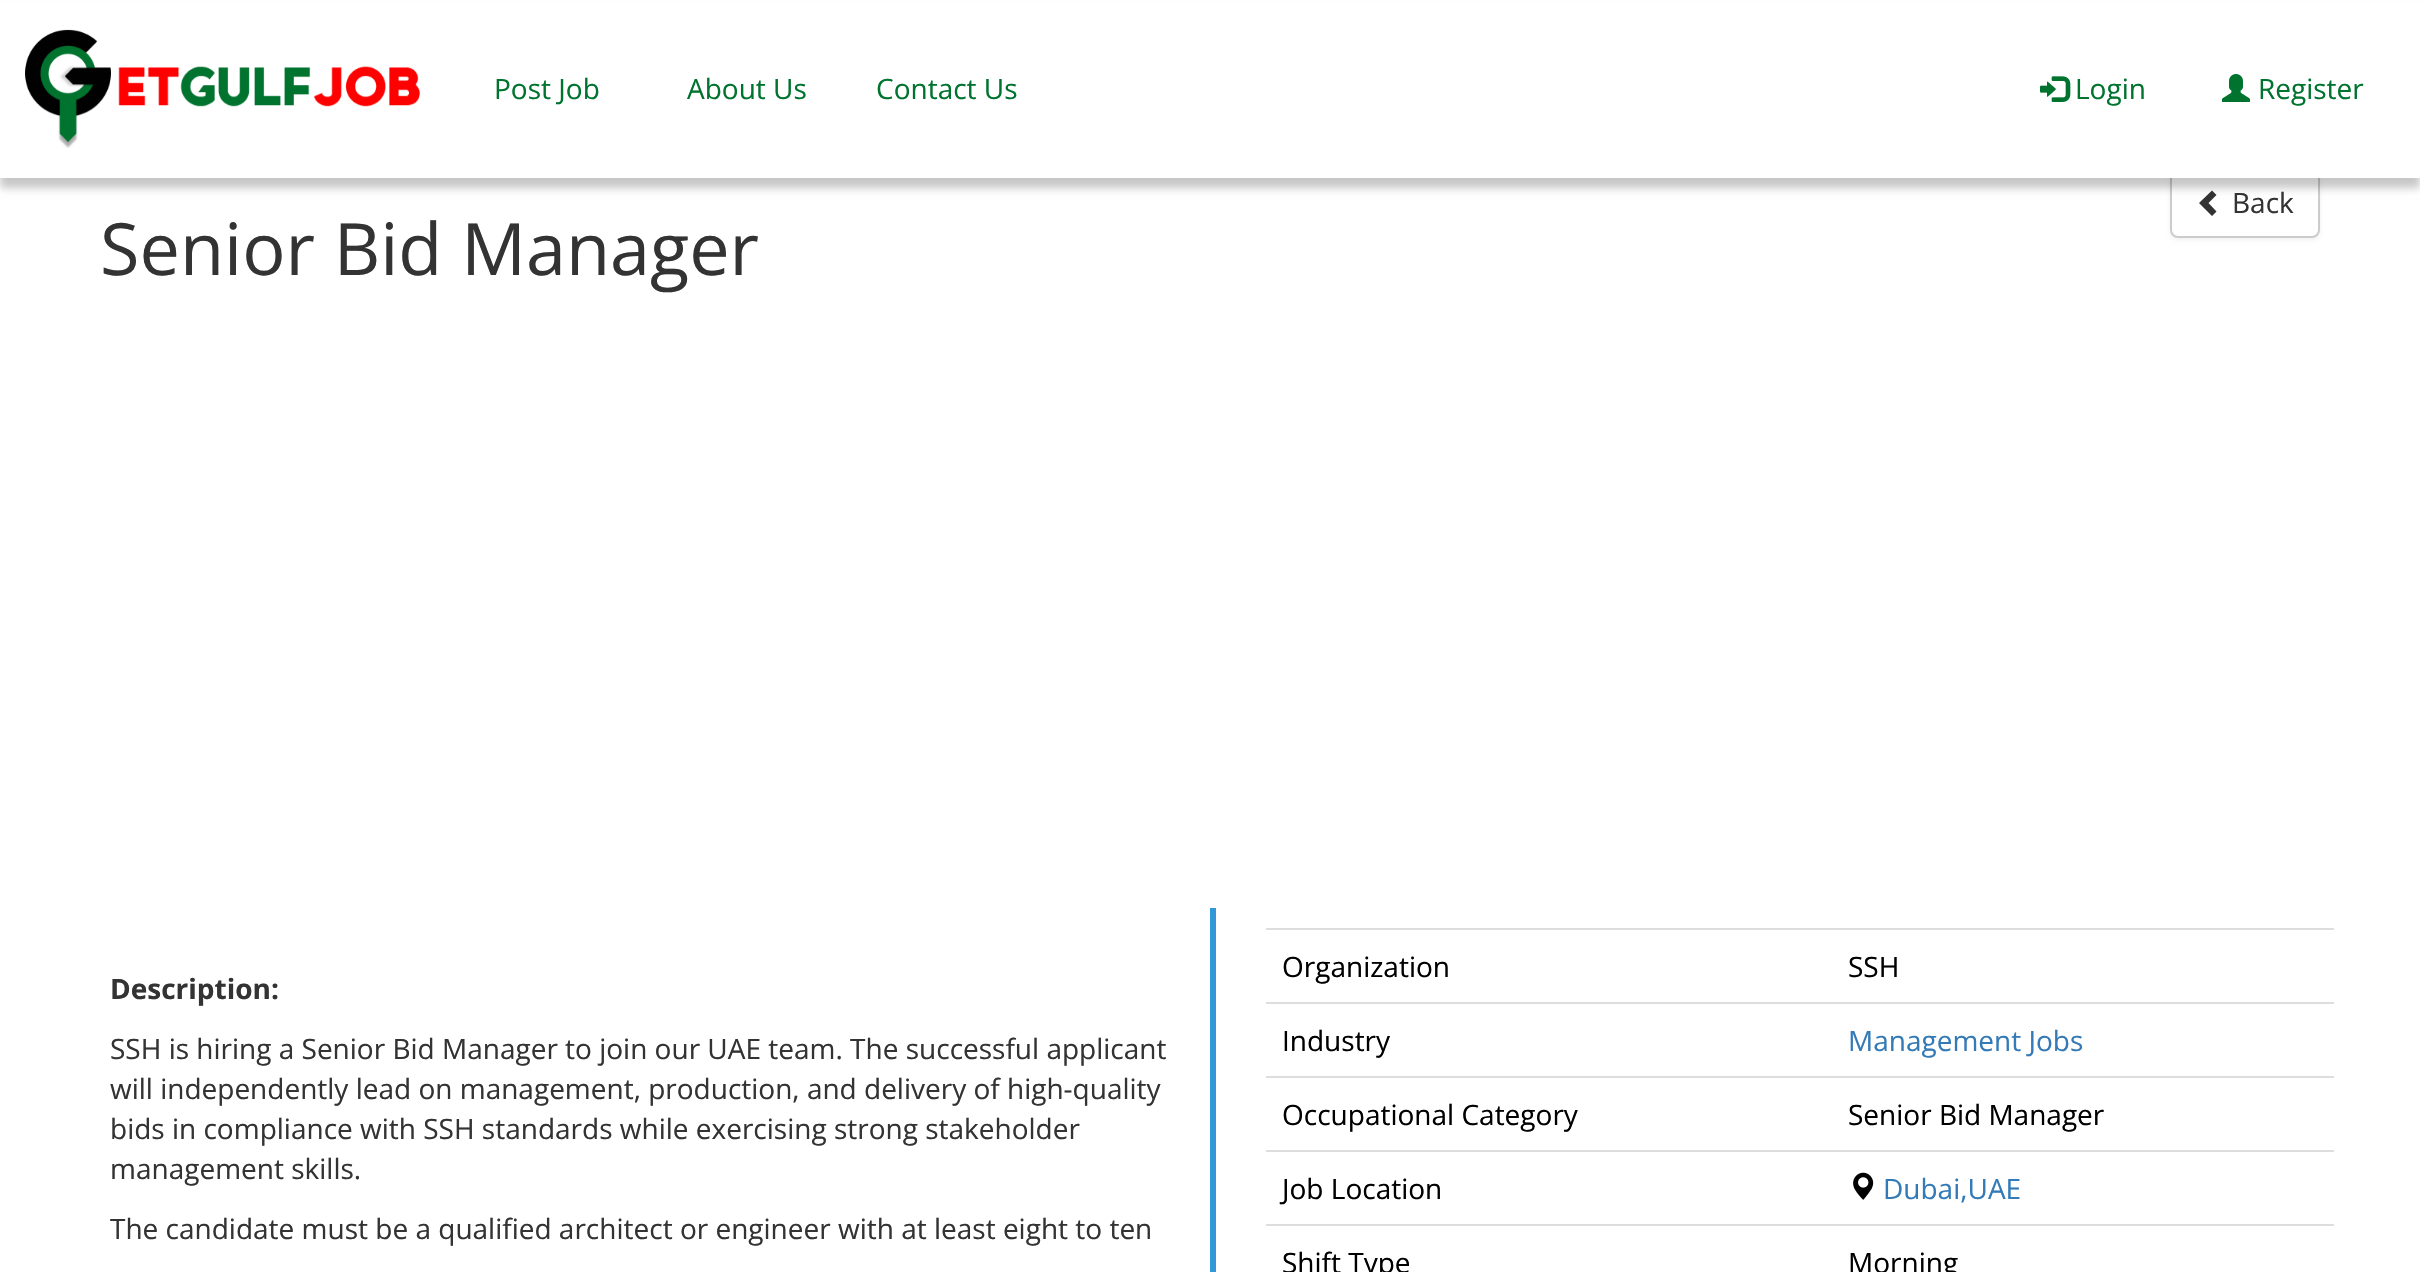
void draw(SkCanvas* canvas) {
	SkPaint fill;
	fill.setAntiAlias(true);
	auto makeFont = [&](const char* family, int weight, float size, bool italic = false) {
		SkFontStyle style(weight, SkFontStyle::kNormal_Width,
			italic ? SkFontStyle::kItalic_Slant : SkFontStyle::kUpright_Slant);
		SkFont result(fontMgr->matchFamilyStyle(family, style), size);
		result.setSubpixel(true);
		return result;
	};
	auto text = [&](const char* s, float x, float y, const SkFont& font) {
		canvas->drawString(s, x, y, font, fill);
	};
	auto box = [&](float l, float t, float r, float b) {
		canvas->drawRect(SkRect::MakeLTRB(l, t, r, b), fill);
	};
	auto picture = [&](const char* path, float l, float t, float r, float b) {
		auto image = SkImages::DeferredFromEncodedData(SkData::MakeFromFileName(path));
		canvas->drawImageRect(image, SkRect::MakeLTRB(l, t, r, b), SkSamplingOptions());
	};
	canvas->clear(0xFFFFFFFF);
	fill.setColor(0x0D000000);
	fill.setMaskFilter(SkMaskFilter::MakeBlur(kNormal_SkBlurStyle, 2));
	canvas->drawRoundRect(SkRect::MakeLTRB(2170, 172, 2320, 240), 8, 8, fill);
	fill.setMaskFilter(nullptr);
	fill.setColor(0xFFFFFFFF);
	canvas->drawRoundRect(SkRect::MakeLTRB(2171, 171, 2319, 237), 7, 7, fill);
	fill.setStyle(SkPaint::kStroke_Style);
	fill.setStrokeWidth(2);
	fill.setColor(0xFFCCCCCC);
	canvas->drawRoundRect(SkRect::MakeLTRB(2171, 171, 2319, 237), 7, 7, fill);
	fill.setStyle(SkPaint::kFill_Style);
	fill.setColor(0xFF333333);
	canvas->drawPath(SkPathBuilder().moveTo(2216.5f, 195).lineTo(2208.5f, 203).lineTo(2216.5f, 211.5f).lineTo(2212, 216).lineTo(2199, 203).lineTo(2212, 190.5f).close().detach(), fill);
	fill.setColor(0x38000000);
	fill.setMaskFilter(SkMaskFilter::MakeBlur(kNormal_SkBlurStyle, 4));
	canvas->drawRect(SkRect::MakeLTRB(0, 10, 2420, 188), fill);
	fill.setMaskFilter(nullptr);
	fill.setColor(0xFFFFFFFF);
	box(0, 3, 2420, 178);
	picture("image0.png", 25, 29, 420, 148);
	picture("image1.png", 2040, 76, 2071, 102);
	picture("image2.png", 2222, 74, 2250, 102);
	fill.setColor(0xFF3398DA);
	box(1210, 908, 1216, 1272);
	fill.setColor(0xFFDDDDDD);
	box(1266, 928, 2334, 930);
	box(1266, 1002, 2334, 1004);
	box(1266, 1076, 2334, 1078);
	box(1266, 1150, 2334, 1152);
	picture("image3.png", 1853, 1172, 1874, 1200);
	box(1266, 1224, 2334, 1226);
	auto font1 = makeFont("Open Sans", 400, 28);
	fill.setColor(0xFF00732F);
	text("Post Job", 494, 99, font1);
	text("About Us", 687, 99, font1);
	text("Contact Us", 876, 99, font1);
	text("Login", 2075, 99, font1);
	text("Register", 2258, 99, font1);
	fill.setColor(0xFF333333);
	text("Back", 2232, 213, font1);
	auto font2 = makeFont("Open Sans", 400, 72);
	text("Senior Bid Manager", 100, 275, font2);
	auto font3 = makeFont("Open Sans", 700, 28);
	text("Description:", 110, 999, font3);
	text("SSH is hiring a Senior Bid Manager to join our UAE team. The successful applicant", 110, 1059, font1);
	text("will independently lead on management, production, and delivery of high-quality", 110, 1099, font1);
	text("bids in compliance with SSH standards while exercising strong stakeholder", 110, 1139, font1);
	text("management skills.", 110, 1179, font1);
	text("The candidate must be a qualified architect or engineer with at least eight to ten", 110, 1239, font1);
	fill.setColor(0xFF000000);
	text("Organization", 1282, 977, font1);
	text("SSH", 1848, 977, font1);
	text("Industry", 1282, 1051, font1);
	fill.setColor(0xFF337AB7);
	text("Management Jobs", 1848, 1051, font1);
	fill.setColor(0xFF000000);
	text("Occupational Category", 1282, 1125, font1);
	text("Senior Bid Manager", 1848, 1125, font1);
	text("Job Location", 1282, 1199, font1);
	fill.setColor(0xFF337AB7);
	text("Dubai,UAE", 1883, 1199, font1);
	fill.setColor(0xFF000000);
	text("Shift Type", 1282, 1273, font1);
	text("Morning", 1848, 1273, font1);
}
